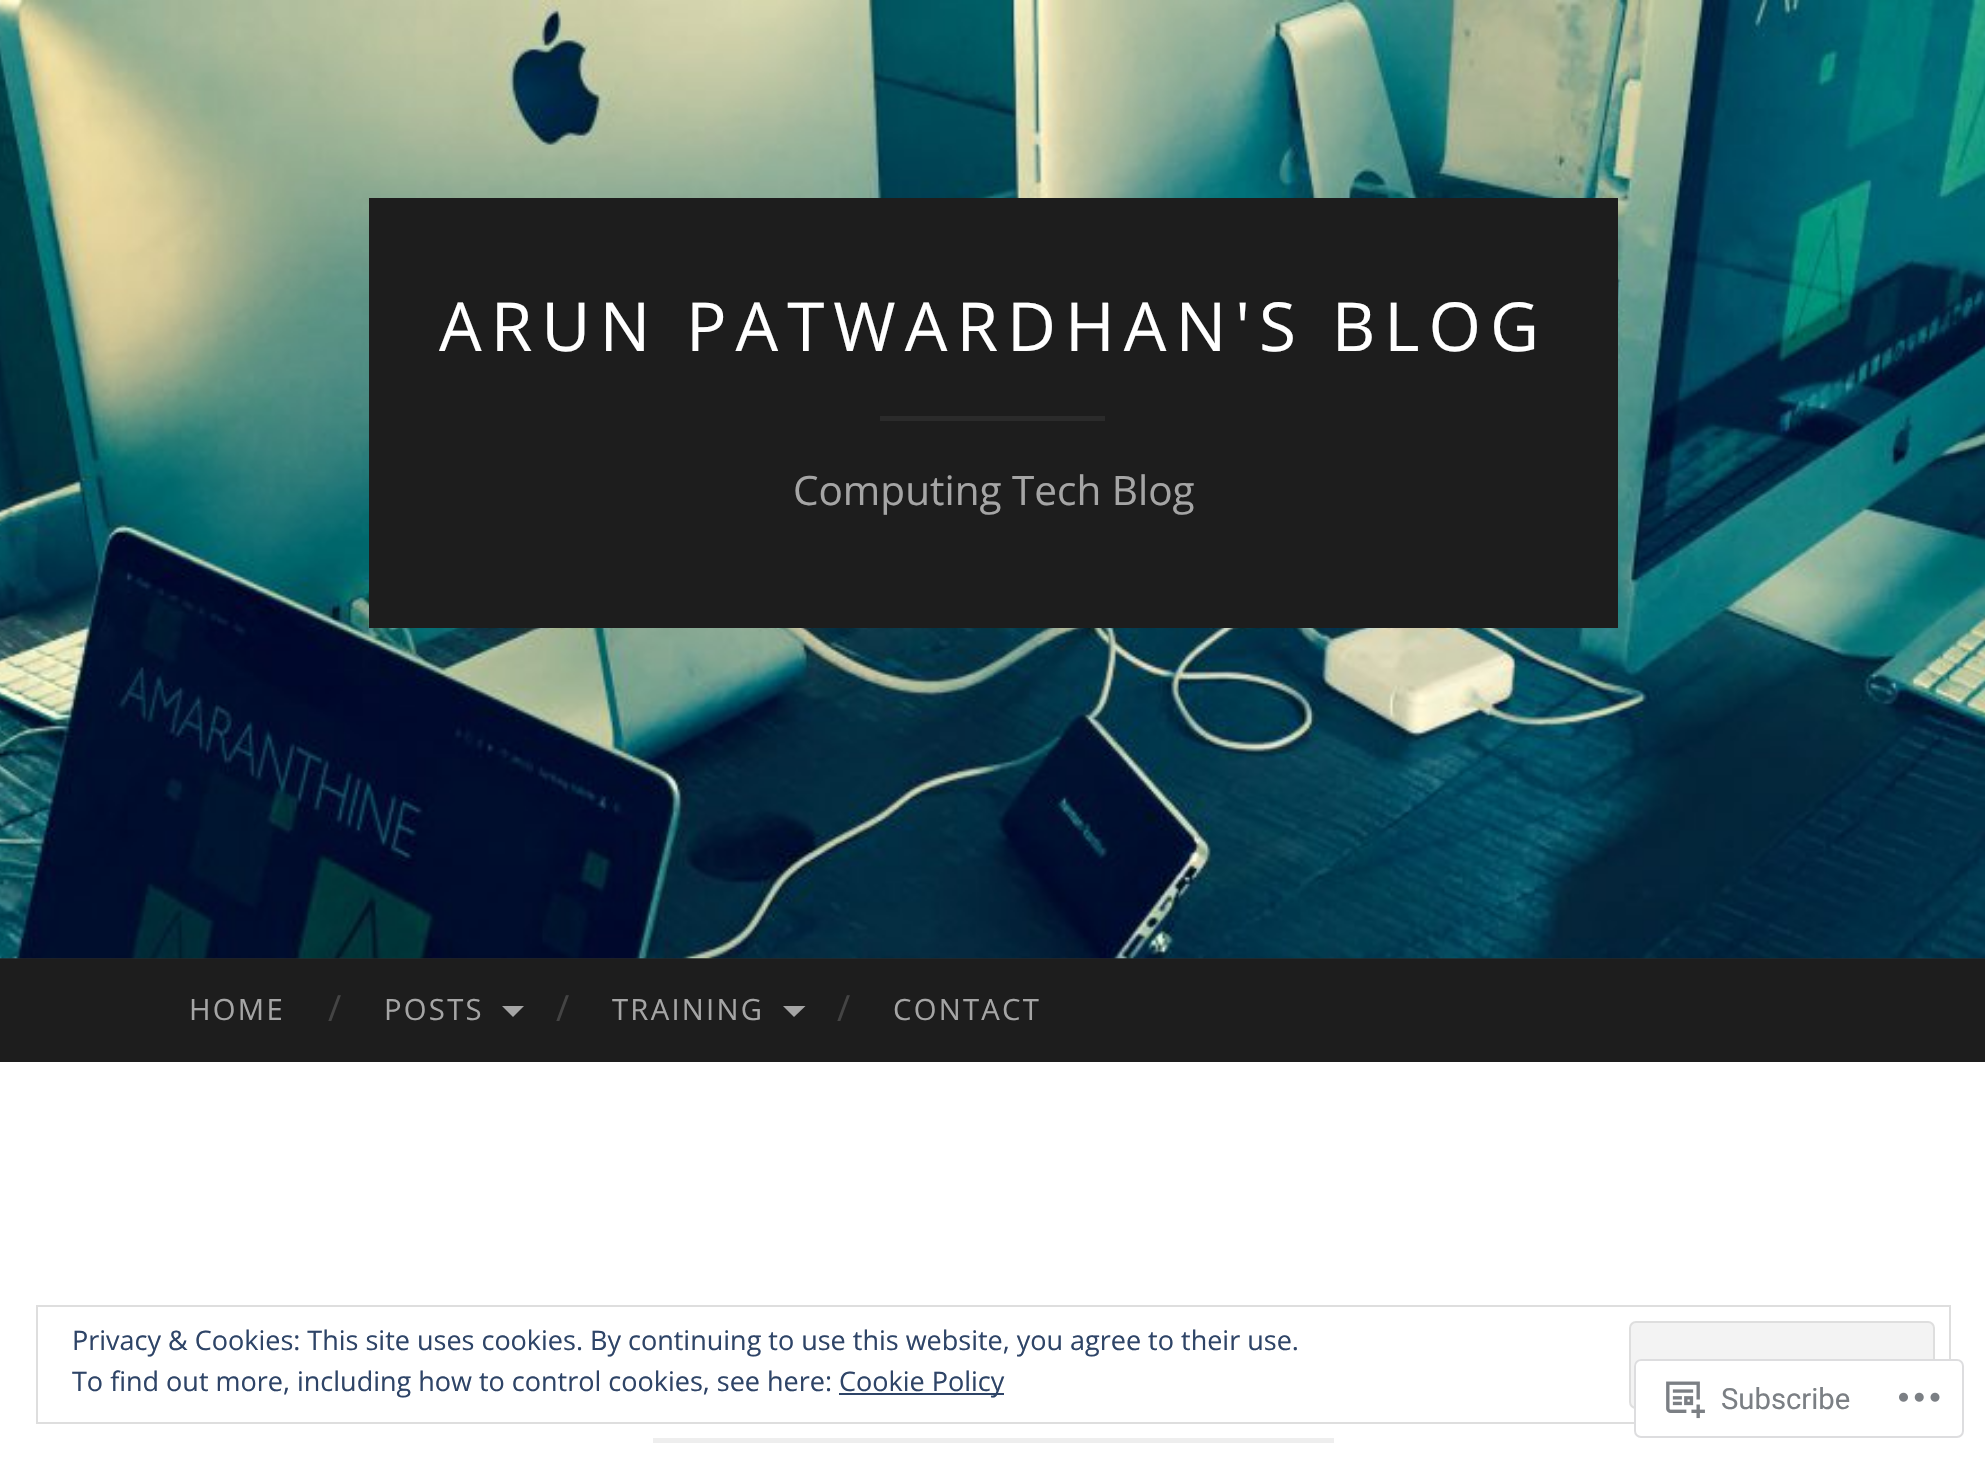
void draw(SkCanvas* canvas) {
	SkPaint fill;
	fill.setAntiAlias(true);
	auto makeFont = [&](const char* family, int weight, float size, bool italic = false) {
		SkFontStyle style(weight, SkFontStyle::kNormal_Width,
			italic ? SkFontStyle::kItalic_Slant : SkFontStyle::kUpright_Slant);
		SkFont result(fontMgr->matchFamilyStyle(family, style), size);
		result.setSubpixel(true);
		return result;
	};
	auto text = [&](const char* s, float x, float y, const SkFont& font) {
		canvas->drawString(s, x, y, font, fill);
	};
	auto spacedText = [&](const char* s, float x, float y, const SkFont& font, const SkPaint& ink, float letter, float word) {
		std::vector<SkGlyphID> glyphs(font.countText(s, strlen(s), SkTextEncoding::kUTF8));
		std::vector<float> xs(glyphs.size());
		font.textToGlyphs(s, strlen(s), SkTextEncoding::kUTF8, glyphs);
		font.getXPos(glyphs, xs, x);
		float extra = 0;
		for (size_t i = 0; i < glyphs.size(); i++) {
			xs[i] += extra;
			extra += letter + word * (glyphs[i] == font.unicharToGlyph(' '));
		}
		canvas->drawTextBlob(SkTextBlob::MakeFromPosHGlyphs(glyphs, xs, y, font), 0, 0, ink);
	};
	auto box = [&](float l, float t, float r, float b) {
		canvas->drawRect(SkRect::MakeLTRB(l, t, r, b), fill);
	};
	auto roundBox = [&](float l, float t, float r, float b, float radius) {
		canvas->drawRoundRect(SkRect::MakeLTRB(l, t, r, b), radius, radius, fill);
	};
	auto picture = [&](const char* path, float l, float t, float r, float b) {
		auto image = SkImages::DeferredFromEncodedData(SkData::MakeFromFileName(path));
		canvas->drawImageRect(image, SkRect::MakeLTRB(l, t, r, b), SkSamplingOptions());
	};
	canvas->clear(0xFFFFFFFF);
	fill.setColor(0xFF262626);
	box(0, 958, 1985, 959);
	picture("image0.png", 0, 0, 1985, 959);
	fill.setColor(0xFF1D1D1D);
	box(369, 198, 1618, 628);
	fill.setColor(0xFF2B2B2B);
	box(880, 416, 1105, 421);
	fill.setColor(0xFF1D1D1D);
	box(0, 959, 1985, 1062);
	fill.setColor(0xFFA5A5A5);
	canvas->drawPath(SkPathBuilder().moveTo(502, 1006).lineTo(524, 1006).lineTo(513, 1017).close().detach(), fill);
	canvas->drawPath(SkPathBuilder().moveTo(783, 1006).lineTo(805.5f, 1006).lineTo(794, 1017).close().detach(), fill);
	fill.setColor(0xFFEEEEEE);
	box(653, 1438, 1334, 1443);
	fill.setStyle(SkPaint::kStroke_Style);
	fill.setStrokeWidth(2);
	fill.setColor(0xFFDEDEDE);
	canvas->drawRect(SkRect::MakeLTRB(37, 1306, 1950, 1423), fill);
	fill.setStyle(SkPaint::kFill_Style);
	fill.setColor(0xFFF3F3F3);
	canvas->drawRoundRect(SkRect::MakeLTRB(1630, 1322, 1934, 1408), 6, 6, fill);
	fill.setStyle(SkPaint::kStroke_Style);
	fill.setColor(0xFFDEDEDE);
	canvas->drawRoundRect(SkRect::MakeLTRB(1630, 1322, 1934, 1408), 6, 6, fill);
	fill.setStyle(SkPaint::kFill_Style);
	fill.setColor(0xFF2E4467);
	box(839, 1393, 1004, 1395);
	fill.setColor(0xFAFFFFFF);
	roundBox(1634, 1359, 1964, 1438, 7);
	fill.setStyle(SkPaint::kStroke_Style);
	fill.setColor(0xFADCDCDE);
	canvas->drawRoundRect(SkRect::MakeLTRB(1635, 1360, 1963, 1437), 6, 6, fill);
	picture("image1.png", 1666, 1381, 1705, 1419);
	picture("image2.png", 1899, 1392, 1940, 1402);
	auto font1 = makeFont("Open Sans", 400, 67.5f);
	fill.setStyle(SkPaint::kFill_Style);
	fill.setColor(0xFFFFFFFF);
	spacedText("ARUN PATWARDHAN'S BLOG", 439, 351, font1, fill, 9, 0);
	auto font2 = makeFont("Open Sans", 400, 40.5f);
	fill.setColor(0xFFA5A5A5);
	text("Computing Tech Blog", 793, 505, font2);
	auto font3 = makeFont("Open Sans", 400, 29.25f);
	spacedText("HOME", 189, 1020, font3, fill, 2.25f, 0);
	auto font4 = makeFont("Open Sans", 400, 36);
	fill.setColor(0xFF444444);
	text("/", 328, 1021, font4);
	fill.setColor(0xFFA5A5A5);
	spacedText("POSTS", 384, 1020, font3, fill, 2.25f, 0);
	fill.setColor(0xFF444444);
	text("/", 556, 1021, font4);
	fill.setColor(0xFFA5A5A5);
	spacedText("TRAINING", 612, 1020, font3, fill, 2.25f, 0);
	fill.setColor(0xFF444444);
	text("/", 837, 1021, font4);
	fill.setColor(0xFFA5A5A5);
	spacedText("CONTACT", 893, 1020, font3, fill, 2.25f, 0);
	auto font5 = makeFont("Open Sans", 400, 27);
	fill.setColor(0xFF2E4467);
	text("Privacy & Cookies: This site uses cookies. By continuing to use this website, you agree to their use.", 72, 1350, font5);
	text("To find out more, including how to control cookies, see here:", 72, 1391, font5);
	text("Cookie Policy", 839, 1391, font5);
	auto font6 = makeFont("Roboto", 400, 29.25f);
	fill.setColor(0xFF7B7F84);
	text("Subscribe", 1721, 1409, font6);
}
